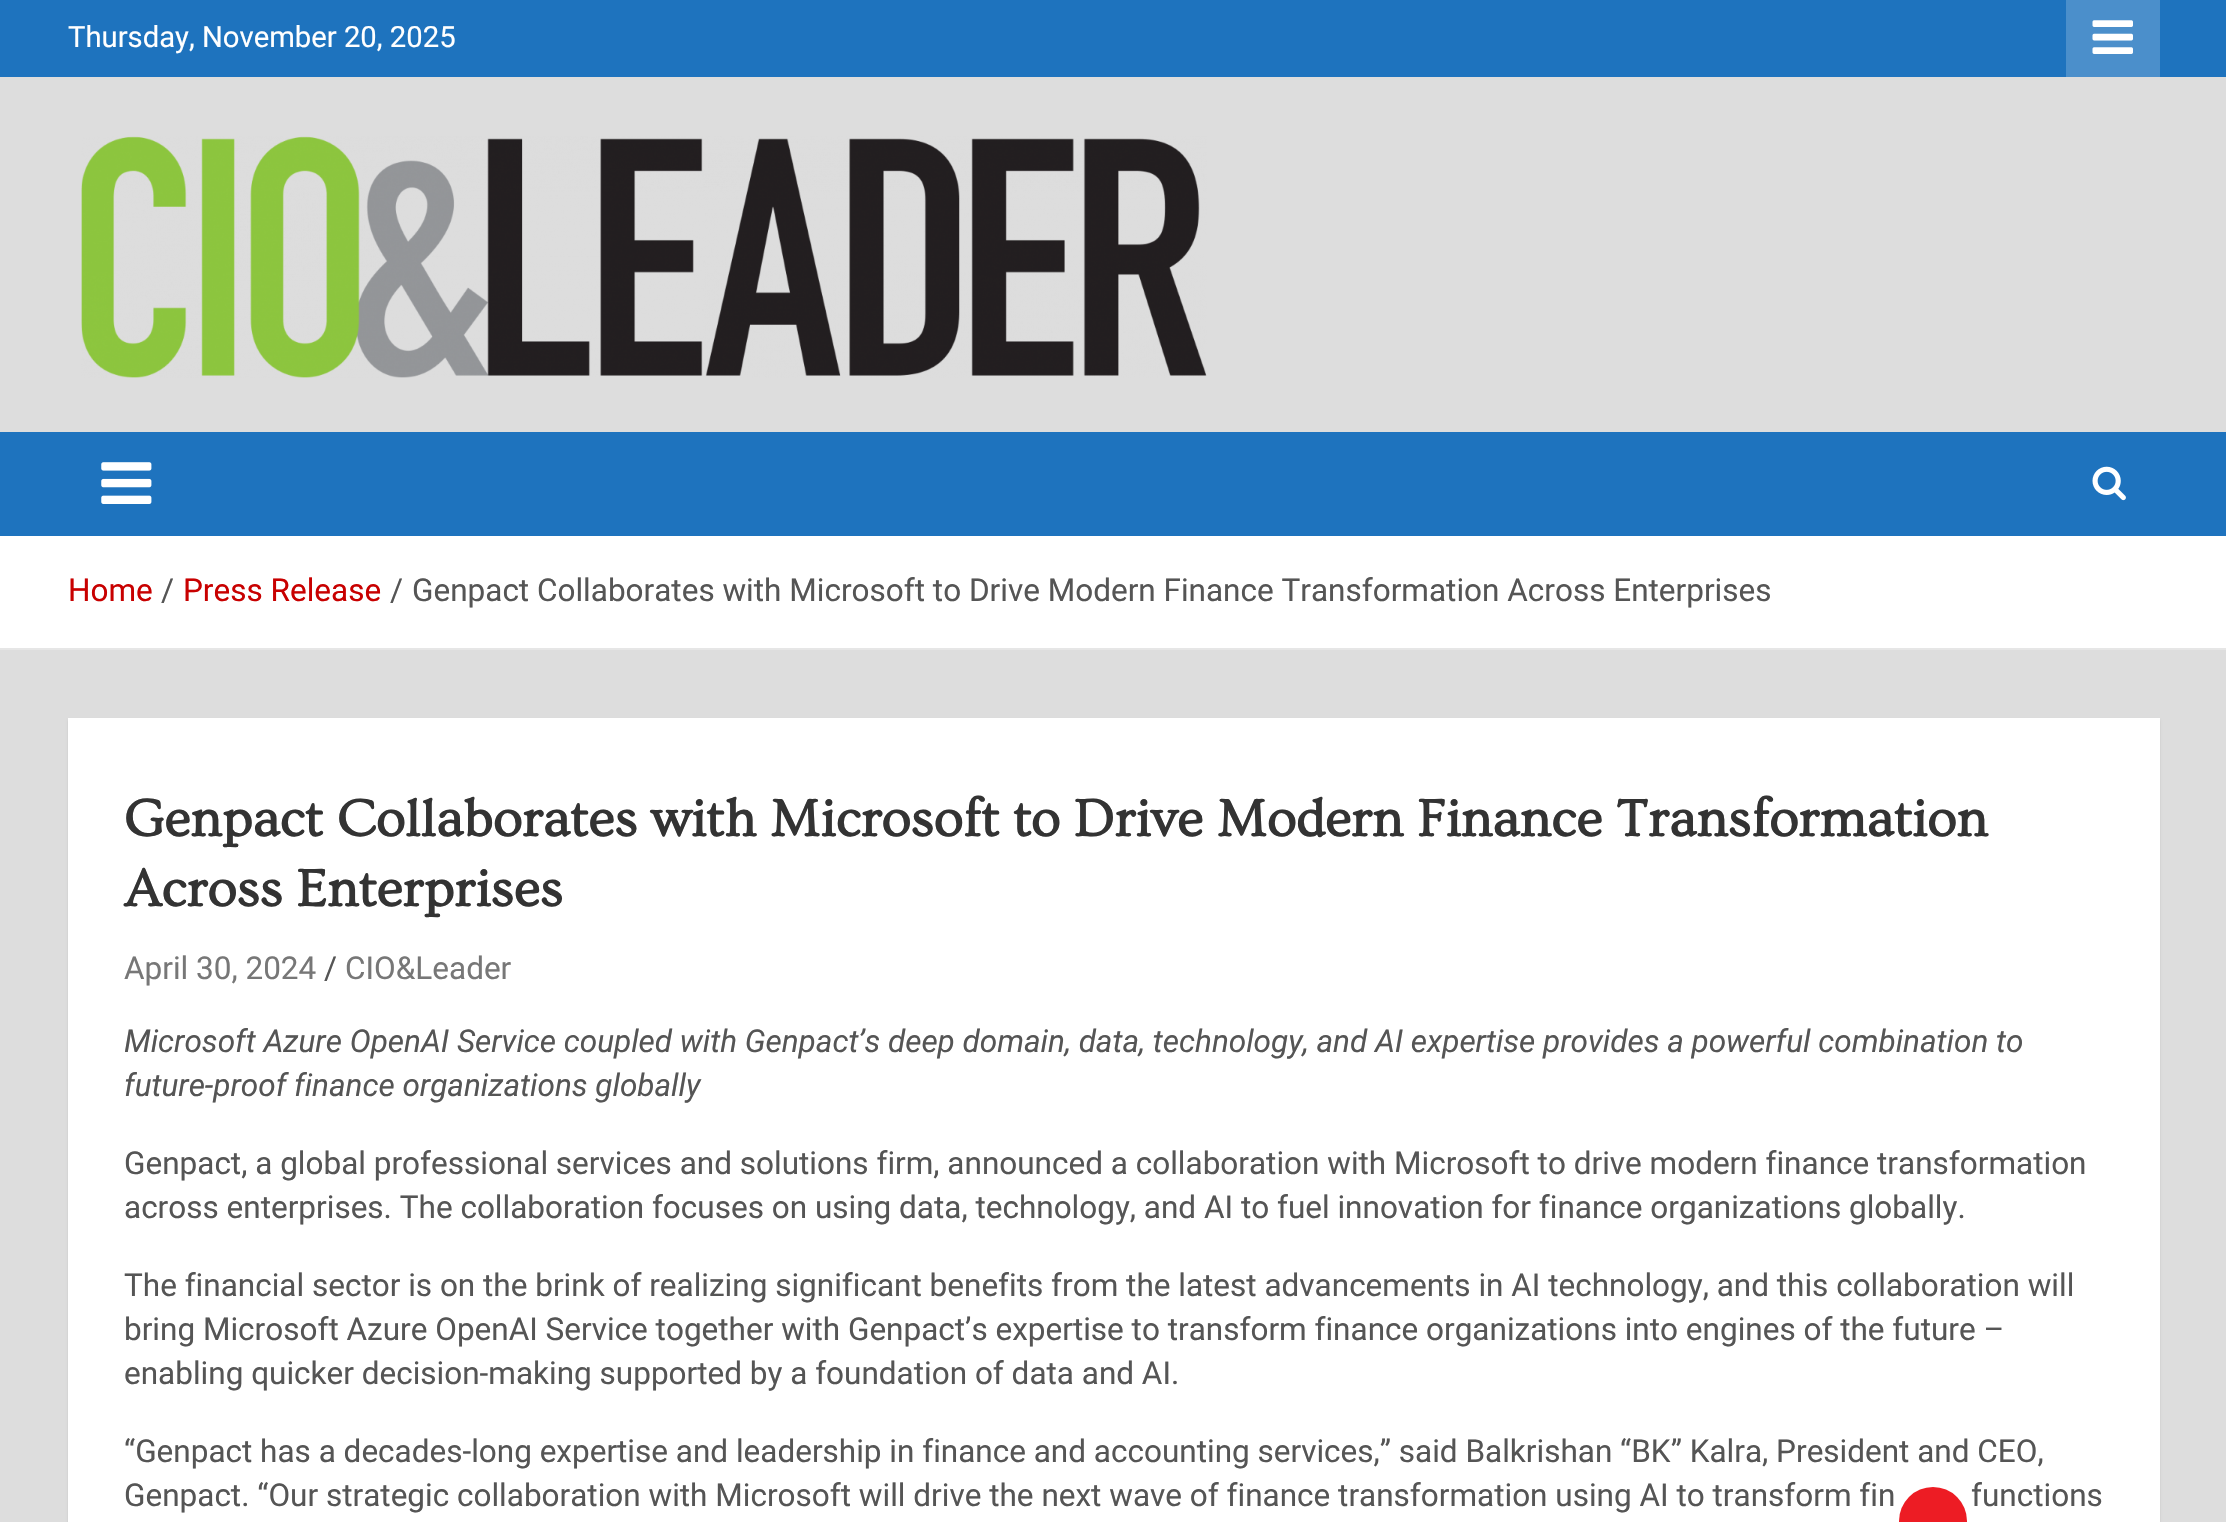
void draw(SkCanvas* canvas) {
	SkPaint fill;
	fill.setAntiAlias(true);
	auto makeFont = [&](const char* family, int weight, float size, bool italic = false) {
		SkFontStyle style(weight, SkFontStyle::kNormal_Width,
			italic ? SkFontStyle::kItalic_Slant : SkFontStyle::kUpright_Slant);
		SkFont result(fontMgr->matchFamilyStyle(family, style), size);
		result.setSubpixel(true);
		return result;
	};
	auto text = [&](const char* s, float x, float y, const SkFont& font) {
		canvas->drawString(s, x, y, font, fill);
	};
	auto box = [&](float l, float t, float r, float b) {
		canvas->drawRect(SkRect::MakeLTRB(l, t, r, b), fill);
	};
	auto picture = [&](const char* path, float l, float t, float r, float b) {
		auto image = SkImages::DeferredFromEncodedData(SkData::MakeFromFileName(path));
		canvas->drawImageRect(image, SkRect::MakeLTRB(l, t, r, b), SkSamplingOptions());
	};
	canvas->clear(0xFFDDDDDD);
	fill.setColor(0xFF1E73BE);
	box(0, 0, 2226, 77);
	fill.setColor(0xFF4B8FCB);
	box(2066, 0, 2160, 77);
	picture("image0.png", 2092, 20, 2133, 54);
	picture("image1.png", 81, 136, 1207, 378);
	fill.setColor(0xFF1E73BE);
	box(0, 432, 2226, 536);
	picture("image2.png", 101, 462, 152, 504);
	picture("image3.png", 2092, 466, 2126, 501);
	fill.setColor(0xFFFFFFFF);
	box(0, 536, 2226, 648);
	fill.setColor(0xFFE6E6E6);
	box(0, 648, 2226, 650);
	fill.setColor(0x1A000000);
	fill.setMaskFilter(SkMaskFilter::MakeBlur(kNormal_SkBlurStyle, 1));
	canvas->drawRect(SkRect::MakeLTRB(68, 720, 2160, 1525), fill);
	fill.setMaskFilter(nullptr);
	fill.setColor(0xFFFFFFFF);
	box(68, 718, 2160, 1522);
	fill.setColor(0xFFED1C24);
	canvas->drawCircle(1933, 1521, 34, fill);
	auto font1 = makeFont("Roboto", 400, 29.25f);
	fill.setColor(0xFFFFFFFF);
	text("Thursday, November 20, 2025", 68, 47, font1);
	auto font2 = makeFont("Roboto", 400, 31.5f);
	fill.setColor(0xFFC80000);
	text("Home", 68, 601, font2);
	fill.setColor(0xFF555555);
	text("/", 161, 601, font2);
	fill.setColor(0xFFC80000);
	text("Press Release", 183, 601, font2);
	fill.setColor(0xFF555555);
	text("/", 390, 601, font2);
	text("Genpact Collaborates with Microsoft to Drive Modern Finance Transformation Across Enterprises", 412, 601, font2);
	auto font3 = makeFont("Ovo", 700, 54);
	fill.setColor(0xFF333333);
	text("Genpact Collaborates with Microsoft to Drive Modern Finance Transformation", 124, 836, font3);
	text("Across Enterprises", 124, 906, font3);
	fill.setColor(0xFF777777);
	text("April 30, 2024", 124, 979, font2);
	fill.setColor(0xFF555555);
	text("/", 324, 979, font2);
	fill.setColor(0xFF777777);
	text("CIO&Leader", 345, 979, font2);
	auto font4 = makeFont("Roboto", 400, 31.5f, true);
	fill.setColor(0xFF555555);
	text("Microsoft Azure OpenAI Service coupled with Genpact’s deep domain, data, technology, and AI expertise provides a powerful combination to", 124, 1052, font4);
	text("future-proof finance organizations globally", 124, 1096, font4);
	text("Genpact, a global professional services and solutions firm, announced a collaboration with Microsoft to drive modern finance transformation", 124, 1174, font2);
	text("across enterprises. The collaboration focuses on using data, technology, and AI to fuel innovation for finance organizations globally.", 124, 1218, font2);
	text("The financial sector is on the brink of realizing significant benefits from the latest advancements in AI technology, and this collaboration will", 124, 1296, font2);
	text("bring Microsoft Azure OpenAI Service together with Genpact’s expertise to transform finance organizations into engines of the future –", 124, 1340, font2);
	text("enabling quicker decision-making supported by a foundation of data and AI.", 124, 1384, font2);
	text("“Genpact has a decades-long expertise and leadership in finance and accounting services,” said Balkrishan “BK” Kalra, President and CEO,", 124, 1462, font2);
	text("Genpact. “Our strategic collaboration with Microsoft will drive the next wave of finance transformation using AI to transform fin", 124, 1506, font2);
	text("functions", 1971, 1506, font2);
}
